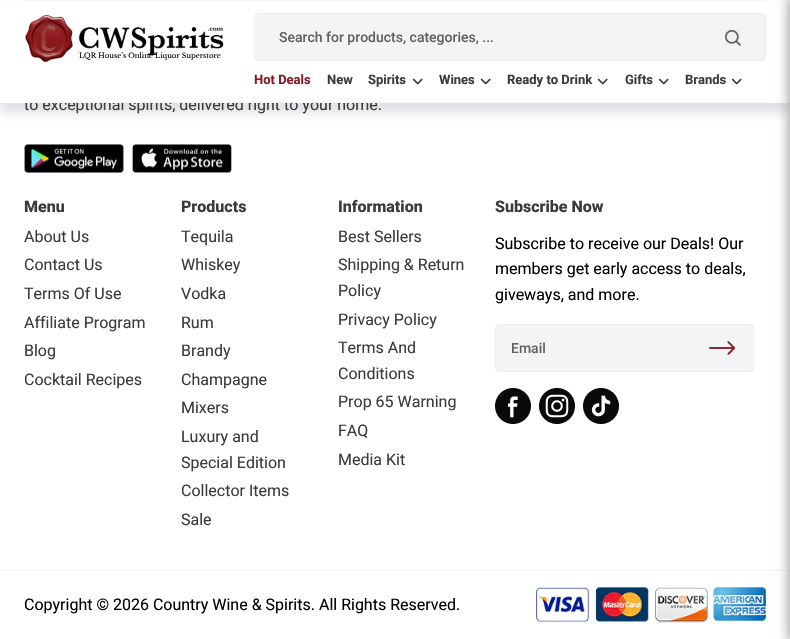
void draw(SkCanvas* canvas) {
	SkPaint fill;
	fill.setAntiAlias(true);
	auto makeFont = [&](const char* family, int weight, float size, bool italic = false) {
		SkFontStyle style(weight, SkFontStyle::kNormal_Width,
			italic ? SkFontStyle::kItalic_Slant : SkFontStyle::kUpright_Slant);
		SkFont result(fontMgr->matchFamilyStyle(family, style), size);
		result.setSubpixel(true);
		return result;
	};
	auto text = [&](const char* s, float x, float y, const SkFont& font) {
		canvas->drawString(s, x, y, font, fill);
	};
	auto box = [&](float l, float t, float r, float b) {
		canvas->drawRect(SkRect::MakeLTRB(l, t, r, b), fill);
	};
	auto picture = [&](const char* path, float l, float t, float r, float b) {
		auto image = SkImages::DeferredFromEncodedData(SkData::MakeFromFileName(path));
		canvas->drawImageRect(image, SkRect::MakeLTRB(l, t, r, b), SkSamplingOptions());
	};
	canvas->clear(0xFFFFFFFF);
	fill.setColor(0x336A647A);
	fill.setMaskFilter(SkMaskFilter::MakeBlur(kNormal_SkBlurStyle, 5));
	canvas->drawRect(SkRect::MakeLTRB(0, 10, 790, 113), fill);
	fill.setMaskFilter(nullptr);
	fill.setColor(0xFFF2F4F6);
	box(24, 0, 766, 1);
	picture("image3.png", 24, 144, 124, 173);
	picture("image4.png", 132, 144, 232, 173);
	canvas->drawRoundRect(SkRect::MakeLTRB(495.5f, 324.5f, 753.5f, 371.5f), 3.5f, 3.5f, fill);
	fill.setStyle(SkPaint::kStroke_Style);
	fill.setStrokeWidth(1);
	fill.setColor(0xFFECEDEF);
	canvas->drawRoundRect(SkRect::MakeLTRB(495.5f, 324.5f, 753.5f, 371.5f), 3.5f, 3.5f, fill);
	picture("image5.png", 709, 341, 736, 355);
	picture("image6.png", 495, 388, 531, 424);
	picture("image7.png", 539, 388, 575, 424);
	picture("image8.png", 583, 388, 619, 424);
	fill.setStyle(SkPaint::kFill_Style);
	fill.setColor(0xFFF2F4F6);
	box(0, 570, 790, 571);
	picture("image9.png", 536, 587, 766, 623);
	auto font1 = makeFont("Roboto", 400, 16);
	fill.setColor(0xFF3B3B3B);
	text("to exceptional spirits, delivered right to your home.", 24, 110, font1);
	fill.setColor(0xFFFFFFFF);
	box(0, 3, 790, 103);
	fill.setColor(0x59000000);
	fill.setMaskFilter(SkMaskFilter::MakeBlur(kNormal_SkBlurStyle, 6));
	canvas->drawRect(SkRect::MakeLTRB(788, -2, 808, 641), fill);
	fill.setMaskFilter(nullptr);
	picture("image0.png", 25, 14, 224, 63);
	auto font2 = makeFont("Libre Baskerville", 400, 7);
	fill.setColor(0xFF000000);
	text("LQR House’s Online Liquor Superstore", 79, 58, font2);
	picture("image2.png", 731, 78, 742, 85);
	auto font3 = makeFont("Roboto", 700, 13);
	fill.setColor(0xFF3B3B3B);
	text("Brands", 685, 84, font3);
	picture("image2.png", 658, 78, 669, 85);
	text("Gifts", 625, 84, font3);
	picture("image2.png", 597, 78, 608, 85);
	text("Ready to Drink", 507, 84, font3);
	picture("image2.png", 480, 78, 491, 85);
	text("Wines", 439, 84, font3);
	picture("image2.png", 412, 78, 423, 85);
	text("Spirits", 368, 84, font3);
	text("New", 327, 84, font3);
	fill.setColor(0xFF861C23);
	text("Hot Deals", 254, 84, font3);
	fill.setColor(0xFFF2F4F6);
	canvas->drawRoundRect(SkRect::MakeLTRB(254.5f, 13.5f, 765.5f, 60.5f), 3.5f, 3.5f, fill);
	fill.setStyle(SkPaint::kStroke_Style);
	fill.setColor(0xFFECEDEF);
	canvas->drawRoundRect(SkRect::MakeLTRB(254.5f, 13.5f, 765.5f, 60.5f), 3.5f, 3.5f, fill);
	fill.setStyle(SkPaint::kFill_Style);
	fill.setColor(0xFFEFEFEF);
	box(725, 29, 741, 45);
	picture("image1.png", 725, 30, 741, 46);
	auto font4 = makeFont("Roboto", 500, 14);
	fill.setColor(0xFF616262);
	text("Search for products, categories, ...", 279, 42, font4);
	fill.setColor(0xFFF2F4F6);
	box(24, 102, 766, 103);
	auto font5 = makeFont("Roboto", 800, 16);
	fill.setColor(0xFF3B3B3B);
	text("Menu", 24, 212, font5);
	text("About Us", 24, 242, font1);
	text("Contact Us", 24, 270, font1);
	text("Terms Of Use", 24, 299, font1);
	text("Affiliate Program", 24, 328, font1);
	text("Blog", 24, 356, font1);
	text("Cocktail Recipes", 24, 385, font1);
	text("Products", 181, 212, font5);
	text("Tequila", 181, 242, font1);
	text("Whiskey", 181, 270, font1);
	text("Vodka", 181, 299, font1);
	text("Rum", 181, 328, font1);
	text("Brandy", 181, 356, font1);
	text("Champagne", 181, 385, font1);
	text("Mixers", 181, 413, font1);
	text("Luxury and", 181, 442, font1);
	text("Special Edition", 181, 468, font1);
	text("Collector Items", 181, 496, font1);
	text("Sale", 181, 525, font1);
	text("Information", 338, 212, font5);
	text("Best Sellers", 338, 242, font1);
	text("Shipping & Return", 338, 270, font1);
	text("Policy", 338, 296, font1);
	text("Privacy Policy", 338, 325, font1);
	text("Terms And", 338, 353, font1);
	text("Conditions", 338, 379, font1);
	text("Prop 65 Warning", 338, 407, font1);
	text("FAQ", 338, 436, font1);
	text("Media Kit", 338, 465, font1);
	text("Subscribe Now", 495, 212, font5);
	fill.setColor(0xFF000000);
	text("Subscribe to receive our Deals! Our", 495, 249, font1);
	text("members get early access to deals,", 495, 274, font1);
	text("giveways, and more.", 495, 300, font1);
	fill.setColor(0xFF616262);
	text("Email", 511, 353, font4);
	fill.setColor(0xFF000000);
	text("Copyright © 2026 Country Wine & Spirits. All Rights Reserved.", 24, 610, font1);
}
